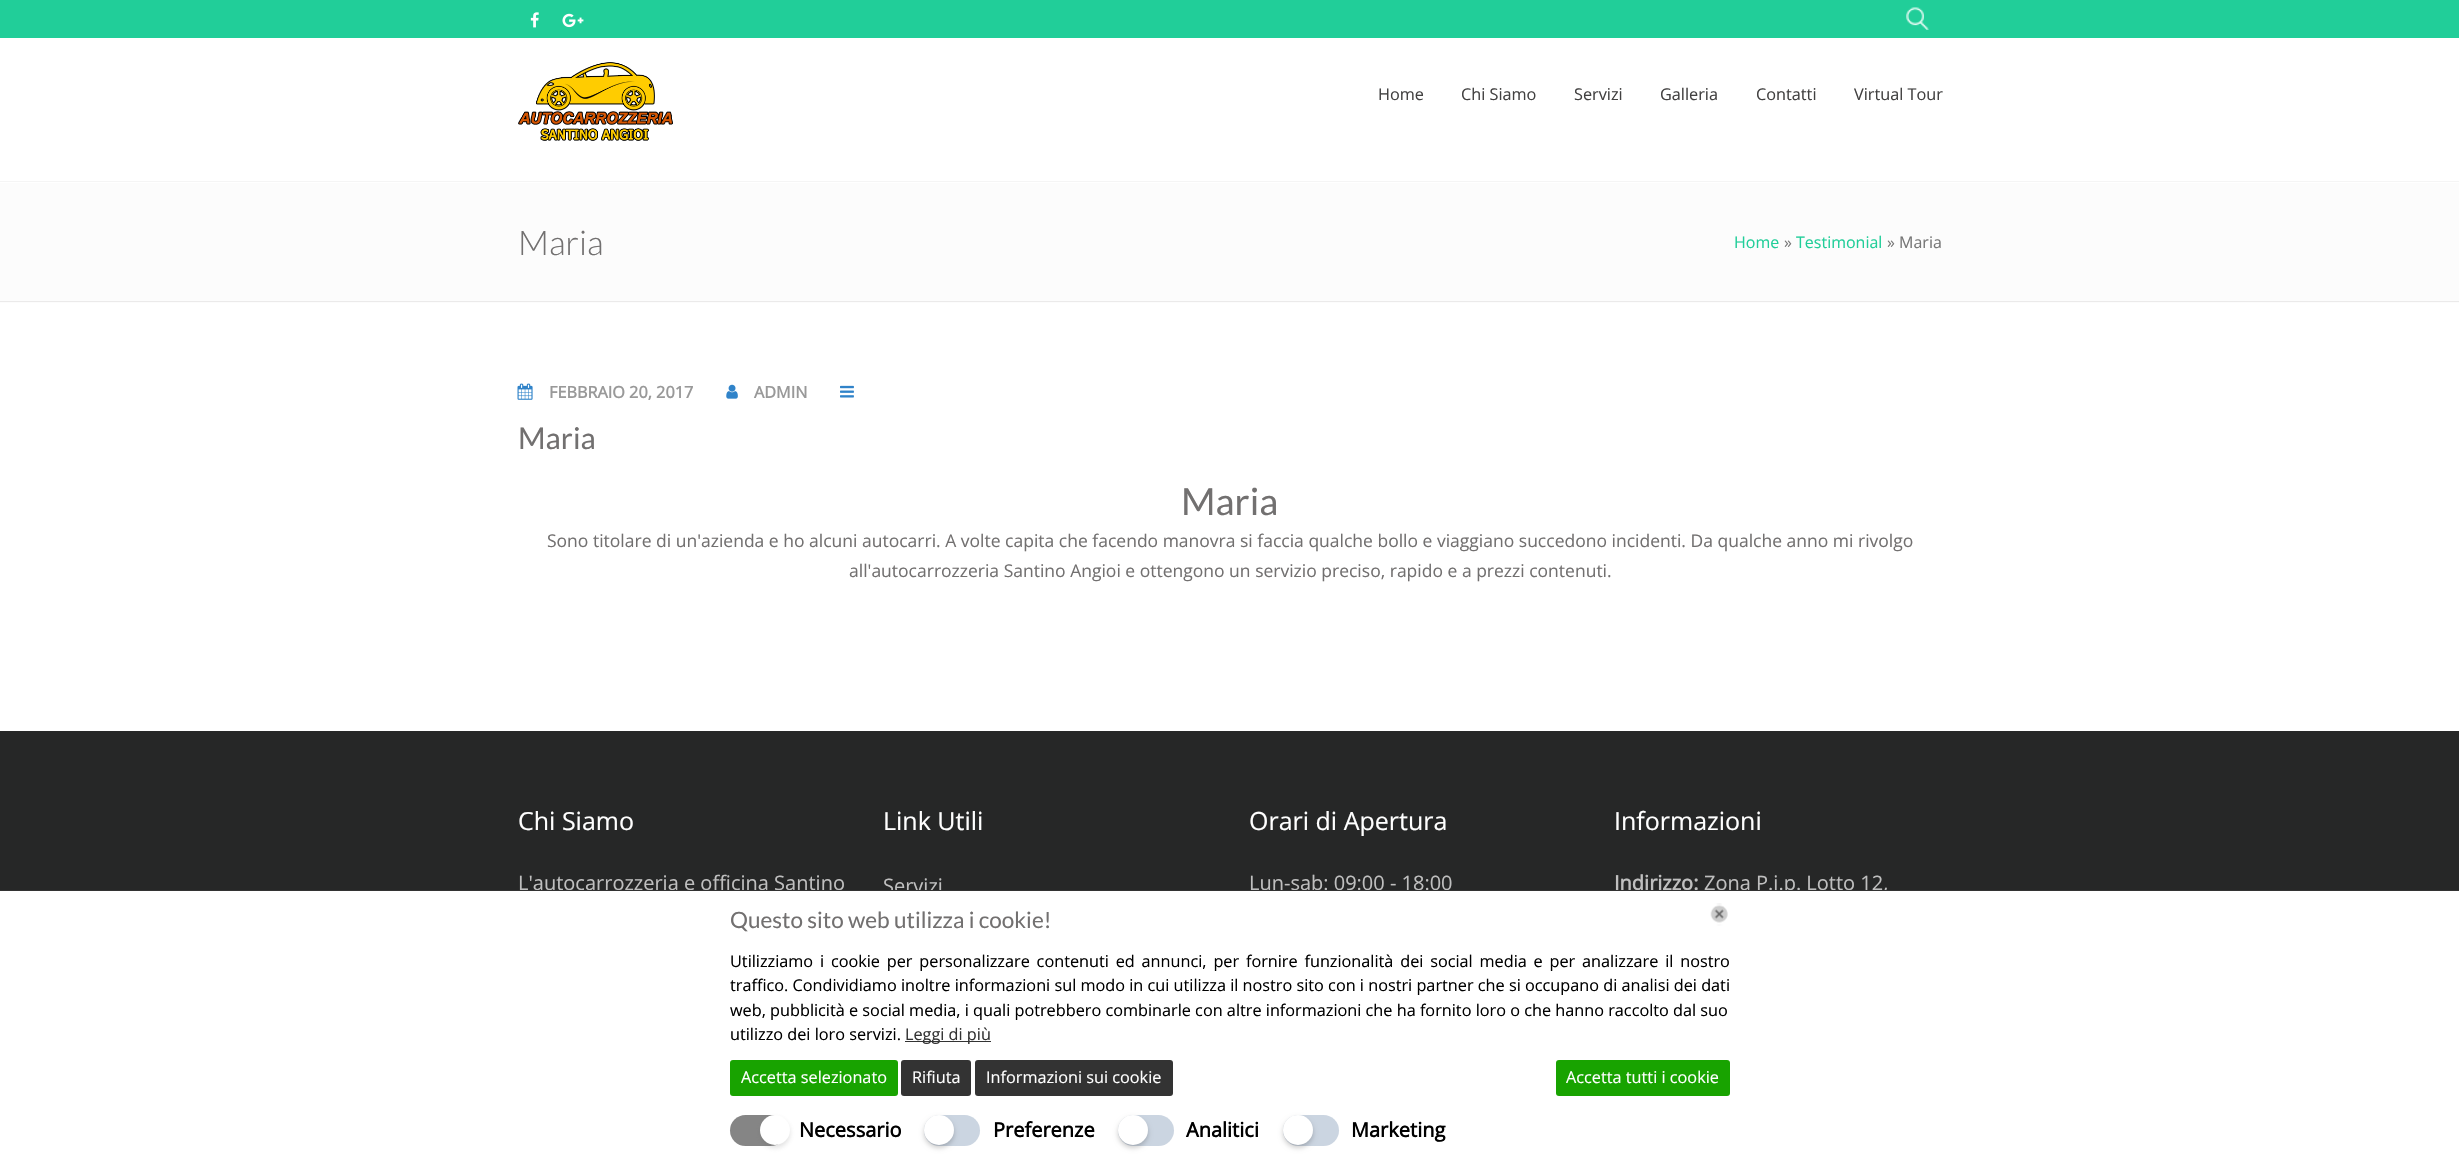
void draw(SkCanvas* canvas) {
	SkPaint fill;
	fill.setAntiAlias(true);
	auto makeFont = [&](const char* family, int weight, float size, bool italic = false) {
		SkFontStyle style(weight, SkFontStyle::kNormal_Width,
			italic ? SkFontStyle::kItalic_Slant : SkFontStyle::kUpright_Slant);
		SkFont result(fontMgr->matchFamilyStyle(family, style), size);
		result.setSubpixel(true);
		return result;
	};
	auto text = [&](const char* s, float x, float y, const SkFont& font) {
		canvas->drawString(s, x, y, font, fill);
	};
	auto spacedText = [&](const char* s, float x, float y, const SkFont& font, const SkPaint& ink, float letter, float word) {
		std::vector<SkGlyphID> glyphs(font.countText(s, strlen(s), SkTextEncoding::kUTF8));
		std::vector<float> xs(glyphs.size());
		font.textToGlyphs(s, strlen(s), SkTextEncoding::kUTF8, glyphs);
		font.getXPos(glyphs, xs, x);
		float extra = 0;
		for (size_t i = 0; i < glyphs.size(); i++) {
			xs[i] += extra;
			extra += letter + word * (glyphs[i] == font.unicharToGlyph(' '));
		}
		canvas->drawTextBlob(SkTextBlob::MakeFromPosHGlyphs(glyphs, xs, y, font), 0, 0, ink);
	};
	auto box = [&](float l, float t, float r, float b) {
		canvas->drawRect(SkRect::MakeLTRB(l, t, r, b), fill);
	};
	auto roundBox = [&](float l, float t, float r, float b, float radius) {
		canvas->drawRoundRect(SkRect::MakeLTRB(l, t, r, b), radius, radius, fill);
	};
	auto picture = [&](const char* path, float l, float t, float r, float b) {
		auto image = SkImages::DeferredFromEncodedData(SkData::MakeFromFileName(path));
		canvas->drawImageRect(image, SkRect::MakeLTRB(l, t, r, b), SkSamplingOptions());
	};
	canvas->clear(0xFFFFFFFF);
	fill.setColor(0xFFF5F5F5);
	box(0, 181, 2459, 182);
	fill.setColor(0xFF21CE99);
	box(0, 0, 2459, 38);
	picture("image0.png", 530, 12, 539, 28);
	picture("image1.png", 562, 13, 584, 28);
	picture("image2.png", 1906, 7, 1929, 30);
	picture("image3.png", 518, 62, 673, 141);
	fill.setColor(0xFFFCFCFC);
	box(0, 183, 2459, 303);
	fill.setColor(0xFFEBEAEA);
	box(0, 301, 2459, 302);
	picture("image4.png", 517, 383, 533, 400);
	picture("image5.png", 726, 384, 738, 399);
	picture("image6.png", 840, 385, 854, 398);
	fill.setColor(0xFF262727);
	box(0, 731, 2459, 890);
	picture("image7.png", 1710, 903, 1728, 926);
	fill.setColor(0xFF333333);
	box(905, 1041, 991, 1042);
	fill.setColor(0xFF18A300);
	roundBox(730, 1060, 898, 1096, 3);
	fill.setColor(0xFF333333);
	roundBox(901, 1060, 971, 1096, 3);
	roundBox(975, 1060, 1173, 1096, 3);
	fill.setColor(0xFF18A300);
	roundBox(1556, 1060, 1730, 1096, 3);
	fill.setColor(0xFF858585);
	roundBox(730, 1115, 786, 1146, 15.5f);
	fill.setColor(0x33666666);
	fill.setMaskFilter(SkMaskFilter::MakeBlur(kNormal_SkBlurStyle, 2.5f));
	canvas->drawRoundRect(SkRect::MakeLTRB(760, 1118, 790, 1148), 15, 15, fill);
	fill.setMaskFilter(nullptr);
	fill.setColor(0xFFFFFFFF);
	canvas->drawCircle(775, 1130, 15, fill);
	fill.setColor(0xFFCBD5E1);
	roundBox(924, 1115, 980, 1146, 15.5f);
	fill.setColor(0x33000000);
	fill.setMaskFilter(SkMaskFilter::MakeBlur(kNormal_SkBlurStyle, 2.5f));
	canvas->drawRoundRect(SkRect::MakeLTRB(924, 1118, 954, 1148), 15, 15, fill);
	fill.setMaskFilter(nullptr);
	fill.setColor(0xFFFFFFFF);
	canvas->drawCircle(939, 1130, 15, fill);
	fill.setColor(0xFFCBD5E1);
	roundBox(1118, 1115, 1174, 1146, 15.5f);
	fill.setColor(0x33000000);
	fill.setMaskFilter(SkMaskFilter::MakeBlur(kNormal_SkBlurStyle, 2.5f));
	canvas->drawRoundRect(SkRect::MakeLTRB(1118, 1118, 1148, 1148), 15, 15, fill);
	fill.setMaskFilter(nullptr);
	fill.setColor(0xFFFFFFFF);
	canvas->drawCircle(1133, 1130, 15, fill);
	fill.setColor(0xFFCBD5E1);
	roundBox(1283, 1115, 1339, 1146, 15.5f);
	fill.setColor(0x33000000);
	fill.setMaskFilter(SkMaskFilter::MakeBlur(kNormal_SkBlurStyle, 2.5f));
	canvas->drawRoundRect(SkRect::MakeLTRB(1283, 1118, 1313, 1148), 15, 15, fill);
	fill.setMaskFilter(nullptr);
	fill.setColor(0xFFFFFFFF);
	canvas->drawCircle(1298, 1130, 15, fill);
	auto font1 = makeFont("Open Sans", 400, 16.25f);
	fill.setColor(0xFF424141);
	text("Home", 1378, 100, font1);
	text("Chi Siamo", 1461, 100, font1);
	text("Servizi", 1574, 100, font1);
	text("Galleria", 1660, 100, font1);
	text("Contatti", 1756, 100, font1);
	text("Virtual Tour", 1854, 100, font1);
	auto font2 = makeFont("Lato", 300, 34);
	fill.setColor(0xFF727070);
	text("Maria", 518, 255, font2);
	auto font3 = makeFont("Open Sans", 400, 16);
	fill.setColor(0xFF21CE99);
	text("Home", 1734, 248, font3);
	fill.setColor(0xFF777777);
	text("»", 1784, 248, font3);
	fill.setColor(0xFF21CE99);
	text("Testimonial", 1796, 248, font3);
	fill.setColor(0xFF777777);
	text("» Maria", 1887, 248, font3);
	auto font4 = makeFont("Open Sans", 700, 16.25f);
	fill.setColor(0xFF999999);
	text("FEBBRAIO 20, 2017", 549, 398, font4);
	text("ADMIN", 754, 398, font4);
	auto font5 = makeFont("Lato", 400, 30);
	fill.setColor(0xFF727070);
	text("Maria", 518, 449, font5);
	auto font6 = makeFont("Lato", 400, 37.5f);
	text("Maria", 1181, 515, font6);
	auto font7 = makeFont("Open Sans", 400, 17.5f);
	text("Sono titolare di un'azienda e ho alcuni autocarri. A volte capita che facendo manovra si faccia qualche bollo e viaggiano succedono incidenti. Da qualche anno mi rivolgo", 547, 547, font7);
	text("all'autocarrozzeria Santino Angioi e ottengono un servizio preciso, rapido e a prezzi contenuti.", 849, 577, font7);
	auto font8 = makeFont("Open Sans", 400, 25);
	fill.setColor(0xFFFFFFFF);
	text("Chi Siamo", 518, 830, font8);
	auto font9 = makeFont("Open Sans", 400, 20);
	fill.setColor(0xFFBFBFBF);
	text("L'autocarrozzeria e officina Santino", 518, 890, font9);
	fill.setColor(0xFFFFFFFF);
	text("Link Utili", 883, 830, font8);
	fill.setColor(0xFFBFBFBF);
	text("Servizi", 883, 893, font9);
	fill.setColor(0xFFFFFFFF);
	text("Orari di Apertura", 1249, 830, font8);
	fill.setColor(0xFFBFBFBF);
	text("Lun-sab: 09:00 - 18:00", 1249, 890, font9);
	fill.setColor(0xFFFFFFFF);
	text("Informazioni", 1614, 830, font8);
	auto font10 = makeFont("Open Sans", 700, 20);
	fill.setColor(0xFFBFBFBF);
	text("Indirizzo:", 1614, 890, font10);
	text("Zona P.i.p. Lotto 12,", 1704, 890, font9);
	fill.setColor(0xFFFFFFFF);
	box(884, 891, 1886, 895);
	fill.setColor(0xFF333333);
	box(0, 890, 2459, 891);
	auto font11 = makeFont("Lato", 400, 22.5f);
	fill.setColor(0xFF727070);
	text("Questo sito web utilizza i cookie!", 730, 928, font11);
	fill.setColor(0xFF000000);
	spacedText("Utilizziamo i cookie per personalizzare contenuti ed annunci, per fornire funzionalità dei social media e per analizzare il nostro", 730, 967, font1, fill, 0, 2.6f);
	text("traffico. Condividiamo inoltre informazioni sul modo in cui utilizza il nostro sito con i nostri partner che si occupano di analisi dei dati", 730, 991, font1);
	text("web, pubblicità e social media, i quali potrebbero combinarle con altre informazioni che ha fornito loro o che hanno raccolto dal suo", 730, 1016, font1);
	text("utilizzo dei loro servizi.", 730, 1040, font1);
	fill.setColor(0xFF333333);
	text("Leggi di più", 905, 1040, font1);
	fill.setColor(0xFFFFFFFF);
	text("Accetta selezionato", 741, 1083, font1);
	text("Rifiuta", 912, 1083, font1);
	text("Informazioni sui cookie", 986, 1083, font1);
	text("Accetta tutti i cookie", 1566, 1083, font1);
	fill.setColor(0xFF000000);
	text("Necessario", 799, 1137, font10);
	text("Preferenze", 993, 1137, font10);
	text("Analitici", 1186, 1137, font10);
	text("Marketing", 1351, 1137, font10);
}
